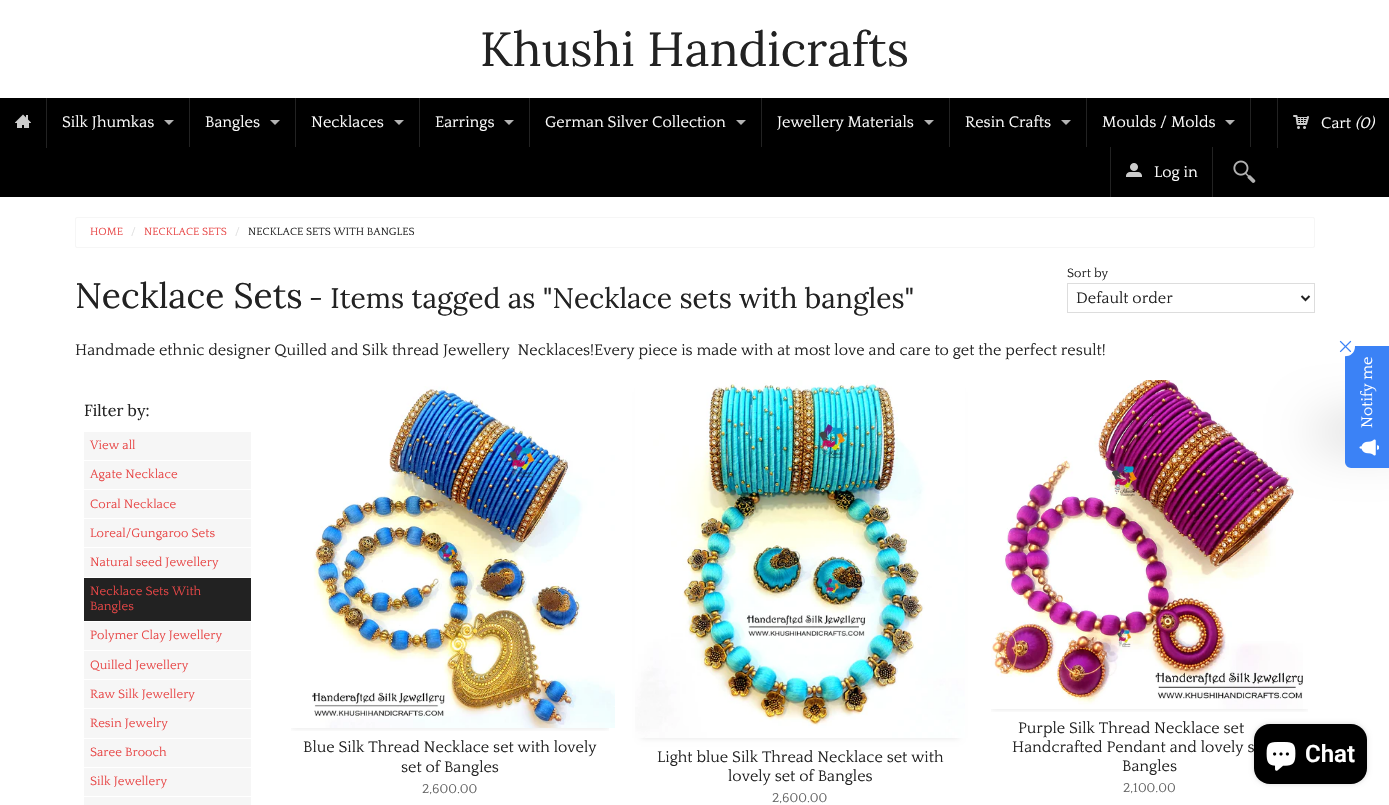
void draw(SkCanvas* canvas) {
	SkPaint fill;
	fill.setAntiAlias(true);
	auto makeFont = [&](const char* family, int weight, float size, bool italic = false) {
		SkFontStyle style(weight, SkFontStyle::kNormal_Width,
			italic ? SkFontStyle::kItalic_Slant : SkFontStyle::kUpright_Slant);
		SkFont result(fontMgr->matchFamilyStyle(family, style), size);
		result.setSubpixel(true);
		return result;
	};
	auto text = [&](const char* s, float x, float y, const SkFont& font) {
		canvas->drawString(s, x, y, font, fill);
	};
	auto box = [&](float l, float t, float r, float b) {
		canvas->drawRect(SkRect::MakeLTRB(l, t, r, b), fill);
	};
	auto roundBox = [&](float l, float t, float r, float b, float radius) {
		canvas->drawRoundRect(SkRect::MakeLTRB(l, t, r, b), radius, radius, fill);
	};
	auto picture = [&](const char* path, float l, float t, float r, float b) {
		auto image = SkImages::DeferredFromEncodedData(SkData::MakeFromFileName(path));
		canvas->drawImageRect(image, SkRect::MakeLTRB(l, t, r, b), SkSamplingOptions());
	};
	canvas->clear(0xFFFFFFFF);
	fill.setColor(0xFF000000);
	box(0, 98, 1389, 197);
	fill.setColor(0xFF222222);
	box(46, 98, 47, 148);
	picture("image0.png", 15, 114, 31, 128);
	box(189, 98, 190, 147);
	fill.setColor(0xFFB3B3B3);
	canvas->drawPath(SkPathBuilder().moveTo(164, 120).lineTo(174, 120).lineTo(169, 125).close().detach(), fill);
	fill.setColor(0xFF222222);
	box(295, 98, 296, 147);
	fill.setColor(0xFFB3B3B3);
	canvas->drawPath(SkPathBuilder().moveTo(270, 120).lineTo(280, 120).lineTo(275, 125).close().detach(), fill);
	fill.setColor(0xFF222222);
	box(419, 98, 420, 147);
	fill.setColor(0xFFB3B3B3);
	canvas->drawPath(SkPathBuilder().moveTo(394, 120).lineTo(404, 120).lineTo(399, 125).close().detach(), fill);
	fill.setColor(0xFF222222);
	box(529, 98, 530, 147);
	fill.setColor(0xFFB3B3B3);
	canvas->drawPath(SkPathBuilder().moveTo(504, 120).lineTo(514, 120).lineTo(509, 125).close().detach(), fill);
	fill.setColor(0xFF222222);
	box(761, 98, 762, 147);
	fill.setColor(0xFFB3B3B3);
	canvas->drawPath(SkPathBuilder().moveTo(736, 120).lineTo(746, 120).lineTo(741, 125).close().detach(), fill);
	fill.setColor(0xFF222222);
	box(949, 98, 950, 147);
	fill.setColor(0xFFB3B3B3);
	canvas->drawPath(SkPathBuilder().moveTo(924, 120).lineTo(934, 120).lineTo(929, 125).close().detach(), fill);
	fill.setColor(0xFF222222);
	box(1086, 98, 1087, 147);
	fill.setColor(0xFFB3B3B3);
	canvas->drawPath(SkPathBuilder().moveTo(1061, 120).lineTo(1071, 120).lineTo(1066, 125).close().detach(), fill);
	fill.setColor(0xFF222222);
	box(1250, 98, 1251, 147);
	fill.setColor(0xFFB3B3B3);
	canvas->drawPath(SkPathBuilder().moveTo(1225, 120).lineTo(1235, 120).lineTo(1230, 125).close().detach(), fill);
	fill.setColor(0xFF222222);
	box(1277, 98, 1278, 148);
	picture("image1.png", 1293, 115, 1309, 129);
	box(1110, 147, 1111, 197);
	picture("image2.png", 1126, 163, 1142, 177);
	box(1212, 147, 1213, 197);
	picture("image3.png", 1233, 160, 1256, 183);
	fill.setStyle(SkPaint::kStroke_Style);
	fill.setStrokeWidth(1);
	fill.setColor(0xFFF6F6F6);
	canvas->drawRoundRect(SkRect::MakeLTRB(75.5f, 217.5f, 1314.5f, 247.5f), 1.5f, 1.5f, fill);
	fill.setColor(0xFFDDDDDD);
	canvas->drawRect(SkRect::MakeLTRB(1067.5f, 283.5f, 1314.5f, 312.5f), fill);
	fill.setStrokeWidth(2);
	fill.setColor(0xFF222222);
	canvas->drawPath(SkPathBuilder().moveTo(1301.5f, 296).lineTo(1305.5f, 300).lineTo(1309.5f, 296).detach(), fill);
	fill.setStyle(SkPaint::kFill_Style);
	fill.setColor(0xFFF6F6F6);
	box(84, 432, 251, 460);
	box(84, 461, 251, 489);
	box(84, 490, 251, 518);
	box(84, 519, 251, 547);
	box(84, 548, 251, 577);
	fill.setColor(0xFF222222);
	box(84, 578, 251, 621);
	fill.setColor(0xFFF6F6F6);
	box(84, 622, 251, 650);
	box(84, 651, 251, 679);
	box(84, 680, 251, 708);
	box(84, 709, 251, 738);
	box(84, 739, 251, 767);
	box(84, 768, 251, 796);
	box(84, 797, 251, 805);
	canvas->save();
	canvas->clipRect(SkRect::MakeLTRB(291, 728, 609, 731));
	fill.setColor(0x1A000000);
	fill.setMaskFilter(SkMaskFilter::MakeBlur(kNormal_SkBlurStyle, 3));
	canvas->drawRect(SkRect::MakeLTRB(291, 392, 609, 728), fill);
	fill.setMaskFilter(nullptr);
	canvas->restore();
	picture("image4.png", 312, 386, 615, 728);
	fill.setMaskFilter(SkMaskFilter::MakeBlur(kNormal_SkBlurStyle, 3));
	canvas->drawRect(SkRect::MakeLTRB(641, 392, 959, 738), fill);
	fill.setMaskFilter(nullptr);
	picture("image5.png", 635, 380, 965, 738);
	canvas->save();
	canvas->clipRect(SkRect::MakeLTRB(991, 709, 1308, 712));
	fill.setMaskFilter(SkMaskFilter::MakeBlur(kNormal_SkBlurStyle, 3));
	canvas->drawRect(SkRect::MakeLTRB(991, 392, 1308, 709), fill);
	fill.setMaskFilter(nullptr);
	canvas->restore();
	picture("image6.png", 991, 380, 1303, 709);
	fill.setColor(0x40000000);
	fill.setMaskFilter(SkMaskFilter::MakeBlur(kNormal_SkBlurStyle, 25));
	canvas->drawRect(SkRect::MakeLTRB(1318, 422, 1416, 442), fill);
	fill.setMaskFilter(nullptr);
	fill.setColor(0xFF3B82F6);
	canvas->drawPath(SkPathBuilder().moveTo(1345, 462).lineTo(1345, 352).cubicTo(1345, 349, 1348, 346, 1351, 346).lineTo(1389, 346).lineTo(1389, 468).lineTo(1351, 468).cubicTo(1348, 468, 1345, 465, 1345, 462).close().detach(), fill);
	fill.setColor(0xFFFFFFFF);
	canvas->drawPath(SkPathBuilder().moveTo(1335, 346.5f).cubicTo(1335, 333.5f, 1355, 333.5f, 1355, 346.5f).cubicTo(1355, 359.5f, 1335, 359.5f, 1335, 346.5f).close().detach(), fill);
	picture("image7.png", 1339, 340, 1352, 353);
	picture("image8.png", 1359, 439, 1379, 456);
	fill.setColor(0x26000000);
	fill.setMaskFilter(SkMaskFilter::MakeBlur(kNormal_SkBlurStyle, 2.5f));
	canvas->drawRoundRect(SkRect::MakeLTRB(1254, 724, 1367, 784), 16, 16, fill);
	fill.setMaskFilter(nullptr);
	auto font1 = makeFont("Lora", 400, 48);
	fill.setColor(0xFF222222);
	text("Khushi Handicrafts", 480, 66, font1);
	auto font2 = makeFont("Quattrocento", 400, 16);
	fill.setColor(0xFFFFFFFF);
	text("Silk Jhumkas", 62, 127, font2);
	text("Bangles", 205, 127, font2);
	text("Necklaces", 311, 127, font2);
	text("Earrings", 435, 127, font2);
	text("German Silver Collection", 545, 127, font2);
	text("Jewellery Materials", 777, 127, font2);
	text("Resin Crafts", 965, 127, font2);
	text("Moulds / Molds", 1102, 127, font2);
	text("Cart", 1321, 128, font2);
	auto font3 = makeFont("Quattrocento", 400, 16, true);
	text("(0)", 1355, 128, font3);
	text("Log in", 1154, 177, font2);
	auto font4 = makeFont("Quattrocento", 400, 11);
	fill.setColor(0xFFE84646);
	text("HOME", 90, 235, font4);
	fill.setColor(0xFFDDDDDD);
	text("/", 131, 235, font4);
	fill.setColor(0xFFE84646);
	text("NECKLACE SETS", 144, 235, font4);
	fill.setColor(0xFFDDDDDD);
	text("/", 235, 235, font4);
	fill.setColor(0xFF222222);
	text("NECKLACE SETS WITH BANGLES", 248, 235, font4);
	auto font5 = makeFont("Lora", 400, 35.25f);
	text("Necklace Sets", 75, 308, font5);
	auto font6 = makeFont("Lora", 400, 28.2f);
	text("- Items tagged as \"Necklace sets with bangles\"", 309, 308, font6);
	auto font7 = makeFont("Quattrocento", 400, 12.75f);
	text("Sort by", 1067, 277, font7);
	text("Default order", 1076, 303, font2);
	text("Handmade ethnic designer Quilled and Silk thread Jewellery  Necklaces!Every piece is made with at most love and care to get the perfect result!", 75, 355, font2);
	auto font8 = makeFont("Lora", 400, 16);
	text("Filter by:", 84, 416, font8);
	fill.setColor(0xFFE84646);
	text("View all", 90, 449, font7);
	text("Agate Necklace", 90, 478, font7);
	text("Coral Necklace", 90, 508, font7);
	text("Loreal/Gungaroo Sets", 90, 537, font7);
	text("Natural seed Jewellery", 90, 566, font7);
	text("Necklace Sets With", 90, 595, font7);
	text("Bangles", 90, 610, font7);
	text("Polymer Clay Jewellery", 90, 639, font7);
	text("Quilled Jewellery", 90, 669, font7);
	text("Raw Silk Jewellery", 90, 698, font7);
	text("Resin Jewelry", 90, 727, font7);
	text("Saree Brooch", 90, 756, font7);
	text("Silk Jewellery", 90, 785, font7);
	fill.setColor(0xFF222222);
	text("Blue Silk Thread Necklace set with lovely", 303, 752, font2);
	text("set of Bangles", 401, 772, font2);
	auto font9 = makeFont("Quattrocento", 400, 13.5f);
	fill.setColor(0xFF646464);
	text("2,600.00", 422, 793, font9);
	fill.setColor(0xFF222222);
	text("Light blue Silk Thread Necklace set with", 657, 762, font2);
	text("lovely set of Bangles", 728, 781, font2);
	fill.setColor(0xFF646464);
	text("2,600.00", 772, 802, font9);
	fill.setColor(0xFF222222);
	text("Purple Silk Thread Necklace set", 1018, 733, font2);
	text("Handcrafted Pendant and lovely s", 1012, 752, font2);
	text("Bangles", 1122, 771, font2);
	fill.setColor(0xFF646464);
	text("2,100.00", 1123, 792, font9);
	fill.setColor(0xFFFFFFFF);
	canvas->save();
	canvas->rotate(-90, 1372, 428);
	text("Notify me", 1372, 428, font2);
	canvas->restore();
	fill.setColor(0xFF000000);
	roundBox(1254, 724, 1367, 784, 16);
	picture("image9.png", 1266, 742, 1296, 771);
	auto font10 = makeFont("Roboto", 600, 24);
	fill.setColor(0xFFFFFFFF);
	text("Chat", 1305, 762, font10);
}
